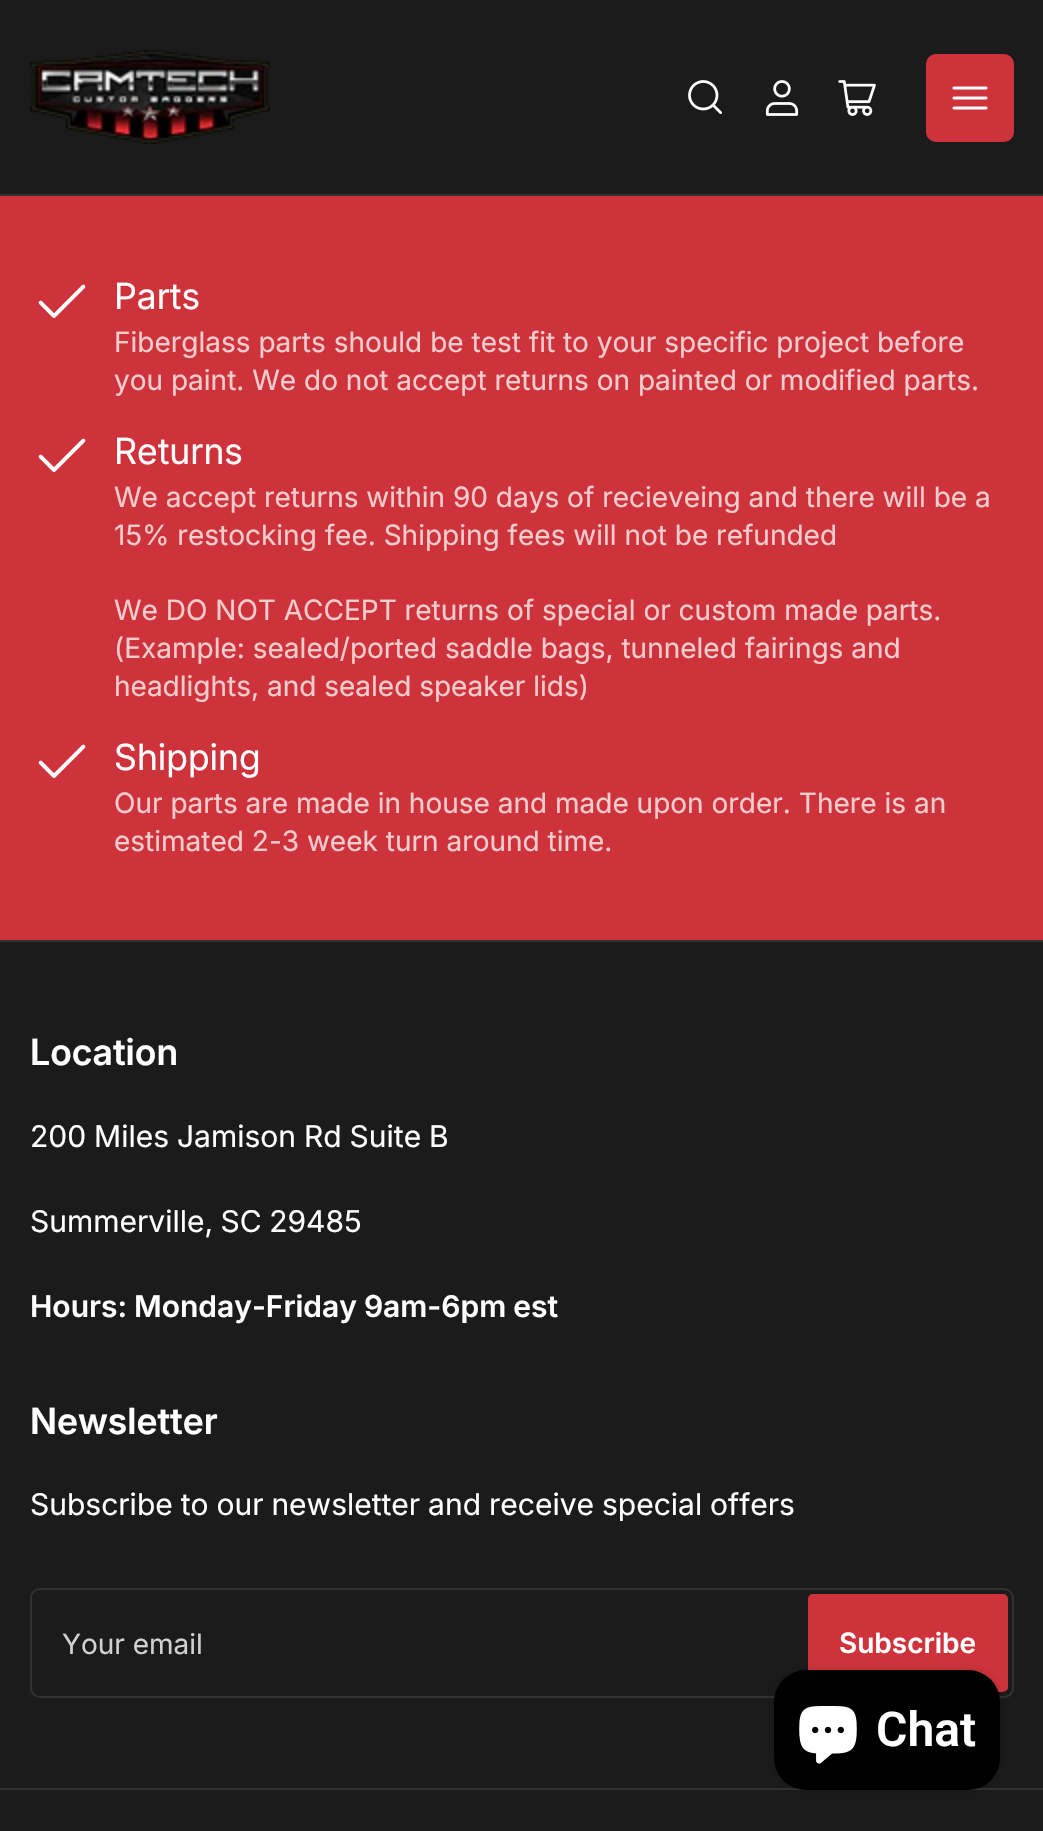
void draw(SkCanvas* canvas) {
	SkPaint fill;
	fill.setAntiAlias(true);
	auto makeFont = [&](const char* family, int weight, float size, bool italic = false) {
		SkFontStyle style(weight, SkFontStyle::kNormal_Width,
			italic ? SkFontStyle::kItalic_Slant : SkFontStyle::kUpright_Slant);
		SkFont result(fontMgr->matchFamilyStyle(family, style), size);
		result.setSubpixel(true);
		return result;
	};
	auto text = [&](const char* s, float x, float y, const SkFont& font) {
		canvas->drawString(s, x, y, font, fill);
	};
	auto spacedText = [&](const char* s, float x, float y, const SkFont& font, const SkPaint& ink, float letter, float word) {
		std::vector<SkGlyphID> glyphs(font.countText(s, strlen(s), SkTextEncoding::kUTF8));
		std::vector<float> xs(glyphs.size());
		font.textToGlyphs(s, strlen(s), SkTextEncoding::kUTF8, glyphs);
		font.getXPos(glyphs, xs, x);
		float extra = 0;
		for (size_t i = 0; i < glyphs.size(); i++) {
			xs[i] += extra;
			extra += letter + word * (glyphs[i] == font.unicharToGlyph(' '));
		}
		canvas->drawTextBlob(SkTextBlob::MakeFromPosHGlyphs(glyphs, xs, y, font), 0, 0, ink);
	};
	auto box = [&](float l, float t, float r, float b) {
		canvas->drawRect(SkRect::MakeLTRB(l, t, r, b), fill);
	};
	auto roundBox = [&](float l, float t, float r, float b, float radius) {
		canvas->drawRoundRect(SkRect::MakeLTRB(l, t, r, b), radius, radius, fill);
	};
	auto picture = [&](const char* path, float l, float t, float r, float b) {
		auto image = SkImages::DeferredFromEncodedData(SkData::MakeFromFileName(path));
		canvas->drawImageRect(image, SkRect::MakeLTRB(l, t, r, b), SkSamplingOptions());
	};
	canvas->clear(0xFFCE333C);
	fill.setColor(0xFF1B1B1B);
	box(0, 0, 1043, 194);
	fill.setColor(0xFF323232);
	box(0, 194, 1043, 196);
	picture("image0.png", 30, 50, 270, 144);
	picture("image1.png", 688, 80, 722, 114);
	picture("image2.png", 765, 80, 799, 116);
	picture("image3.png", 838, 80, 876, 116);
	fill.setColor(0xFFCE333C);
	canvas->drawRoundRect(SkRect::MakeLTRB(927, 55, 1013, 141), 9, 9, fill);
	fill.setStyle(SkPaint::kStroke_Style);
	fill.setStrokeWidth(2);
	canvas->drawRoundRect(SkRect::MakeLTRB(927, 55, 1013, 141), 9, 9, fill);
	picture("image4.png", 952, 86, 988, 110);
	picture("image5.png", 38, 284, 86, 318);
	picture("image5.png", 38, 438, 86, 472);
	picture("image5.png", 38, 744, 86, 778);
	fill.setStyle(SkPaint::kFill_Style);
	fill.setColor(0xFF1B1B1B);
	box(0, 942, 1043, 1788);
	fill.setColor(0xFF323232);
	box(0, 940, 1043, 942);
	fill.setStyle(SkPaint::kStroke_Style);
	canvas->drawRoundRect(SkRect::MakeLTRB(31, 1589, 1013, 1697), 9, 9, fill);
	fill.setStyle(SkPaint::kFill_Style);
	fill.setColor(0xFFCE333C);
	canvas->drawRoundRect(SkRect::MakeLTRB(809, 1595, 1007, 1691), 4, 4, fill);
	fill.setStyle(SkPaint::kStroke_Style);
	canvas->drawRoundRect(SkRect::MakeLTRB(809, 1595, 1007, 1691), 4, 4, fill);
	fill.setStyle(SkPaint::kFill_Style);
	fill.setColor(0xFF1B1B1B);
	box(0, 1790, 1043, 1831);
	fill.setColor(0xFF323232);
	box(0, 1788, 1043, 1790);
	fill.setColor(0x26000000);
	fill.setMaskFilter(SkMaskFilter::MakeBlur(kNormal_SkBlurStyle, 5));
	canvas->drawRoundRect(SkRect::MakeLTRB(774, 1670, 1000, 1790), 32, 32, fill);
	fill.setMaskFilter(nullptr);
	fill.setColor(0xFF000000);
	roundBox(774, 1670, 1000, 1790, 32);
	picture("image6.png", 799, 1706, 857, 1764);
	auto font1 = makeFont("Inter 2", 400, 36);
	fill.setColor(0xFFFFFFFF);
	text("Parts", 114, 309, font1);
	auto font2 = makeFont("Inter", 400, 28);
	fill.setColor(0xFFF3CCCE);
	text("Fiberglass parts should be test fit to your specific project before", 114, 352, font2);
	text("you paint. We do not accept returns on painted or modified parts.", 114, 390, font2);
	fill.setColor(0xFFFFFFFF);
	text("Returns", 114, 464, font1);
	fill.setColor(0xFFF3CCCE);
	text("We accept returns within 90 days of recieveing and there will be a", 114, 507, font2);
	text("15% restocking fee. Shipping fees will not be refunded", 114, 545, font2);
	text("We DO NOT ACCEPT returns of special or custom made parts.", 114, 620, font2);
	text("(Example: sealed/ported saddle bags, tunneled fairings and", 114, 658, font2);
	text("headlights, and sealed speaker lids)", 114, 696, font2);
	fill.setColor(0xFFFFFFFF);
	text("Shipping", 114, 770, font1);
	fill.setColor(0xFFF3CCCE);
	text("Our parts are made in house and made upon order. There is an", 114, 813, font2);
	text("estimated 2-3 week turn around time.", 114, 851, font2);
	auto font3 = makeFont("Inter", 600, 36);
	fill.setColor(0xFFFFFFFF);
	text("Location", 30, 1065, font3);
	auto font4 = makeFont("Inter", 400, 30);
	spacedText("200 Miles Jamison Rd Suite B", 30, 1147, font4, fill, 0, -0.5f);
	spacedText("Summerville, SC 29485", 30, 1232, font4, fill, 0, -1);
	auto font5 = makeFont("Inter 2", 600, 30);
	spacedText("Hours: Monday-Friday 9am-6pm est", 30, 1317, font5, fill, 0, -0.5f);
	text("Newsletter", 30, 1434, font3);
	spacedText("Subscribe to our newsletter and receive special offers", 30, 1515, font4, fill, 0, -0.5f);
	fill.setColor(0xFFD1D1D1);
	text("Your email", 62, 1654, font2);
	auto font6 = makeFont("Inter 2", 600, 28);
	fill.setColor(0xFFFFFFFF);
	text("Subscribe", 839, 1653, font6);
	auto font7 = makeFont("Roboto", 600, 48);
	text("Chat", 876, 1746, font7);
}
